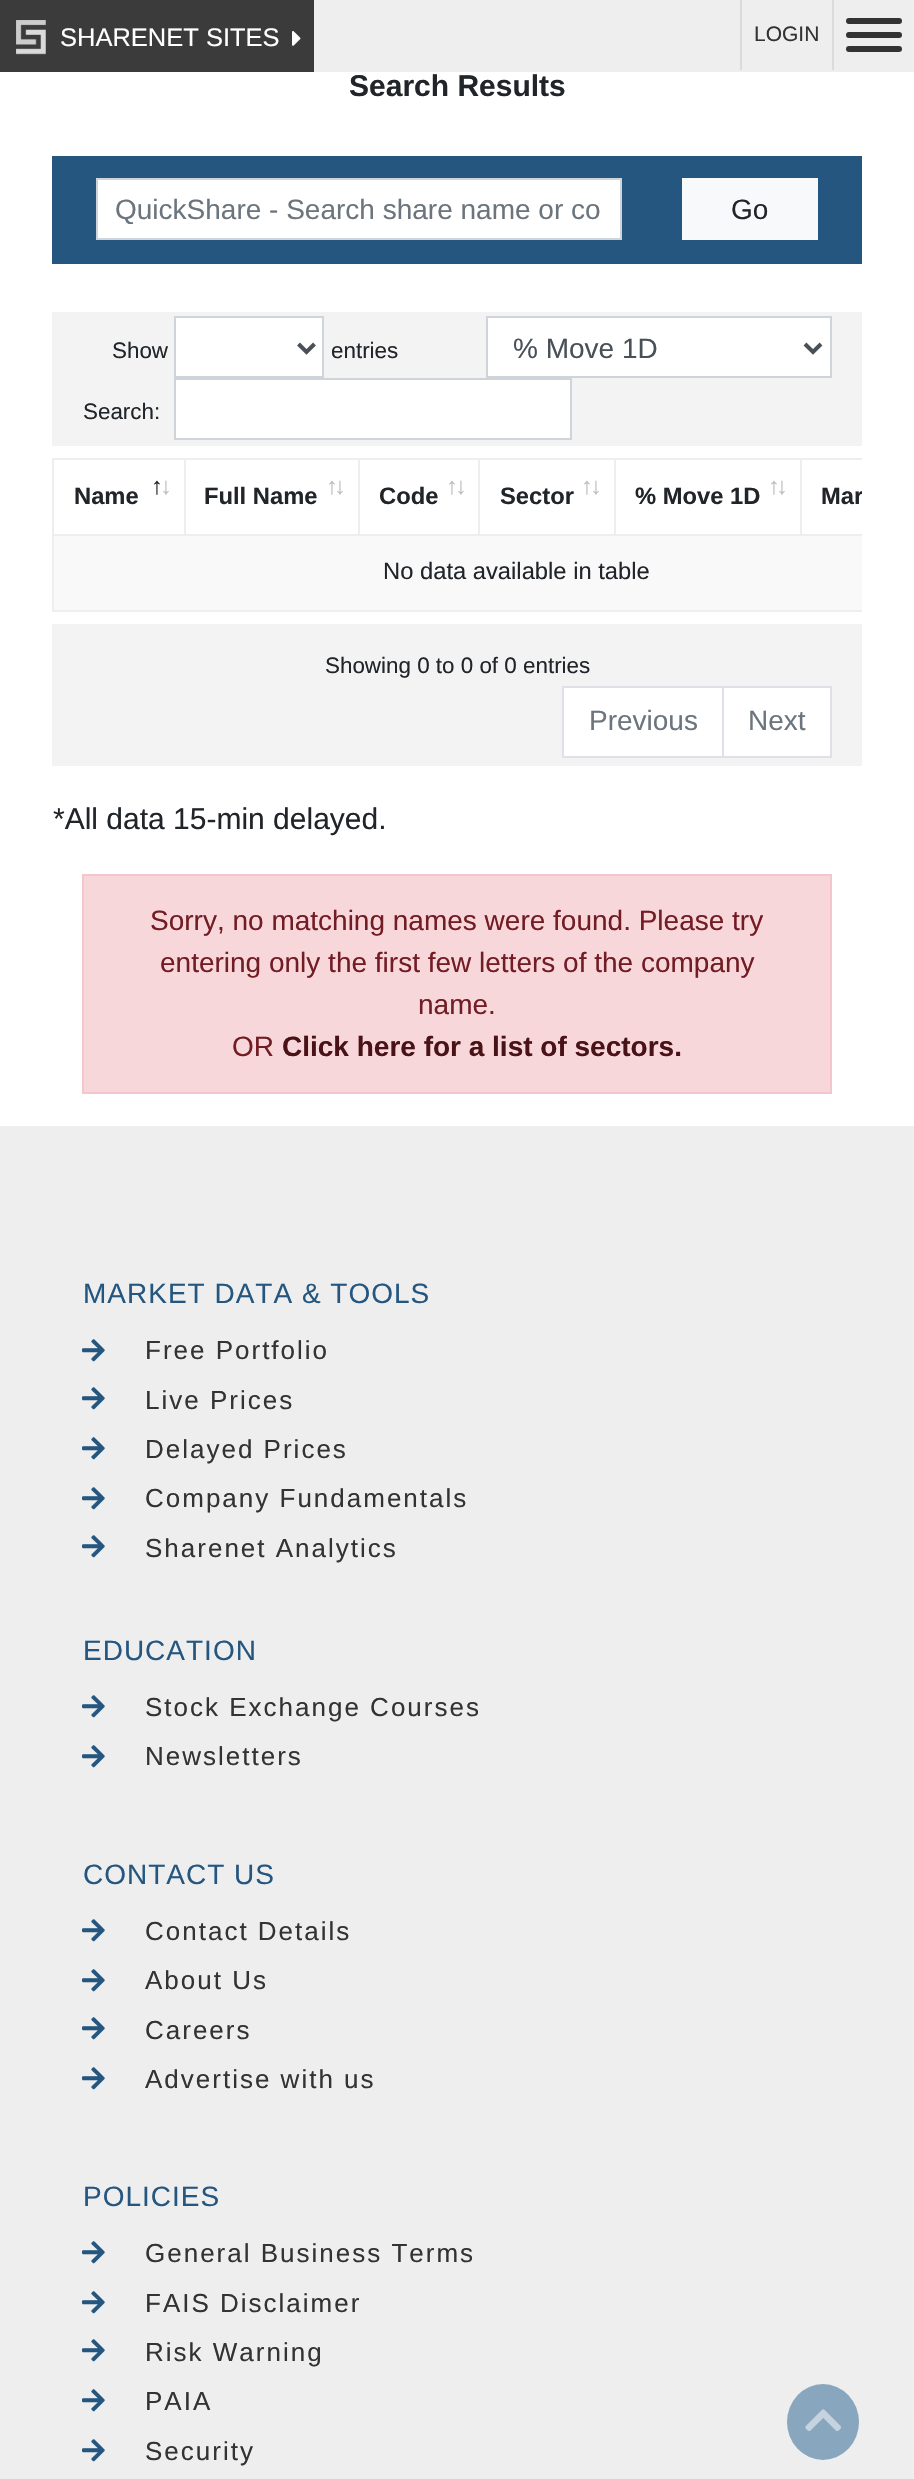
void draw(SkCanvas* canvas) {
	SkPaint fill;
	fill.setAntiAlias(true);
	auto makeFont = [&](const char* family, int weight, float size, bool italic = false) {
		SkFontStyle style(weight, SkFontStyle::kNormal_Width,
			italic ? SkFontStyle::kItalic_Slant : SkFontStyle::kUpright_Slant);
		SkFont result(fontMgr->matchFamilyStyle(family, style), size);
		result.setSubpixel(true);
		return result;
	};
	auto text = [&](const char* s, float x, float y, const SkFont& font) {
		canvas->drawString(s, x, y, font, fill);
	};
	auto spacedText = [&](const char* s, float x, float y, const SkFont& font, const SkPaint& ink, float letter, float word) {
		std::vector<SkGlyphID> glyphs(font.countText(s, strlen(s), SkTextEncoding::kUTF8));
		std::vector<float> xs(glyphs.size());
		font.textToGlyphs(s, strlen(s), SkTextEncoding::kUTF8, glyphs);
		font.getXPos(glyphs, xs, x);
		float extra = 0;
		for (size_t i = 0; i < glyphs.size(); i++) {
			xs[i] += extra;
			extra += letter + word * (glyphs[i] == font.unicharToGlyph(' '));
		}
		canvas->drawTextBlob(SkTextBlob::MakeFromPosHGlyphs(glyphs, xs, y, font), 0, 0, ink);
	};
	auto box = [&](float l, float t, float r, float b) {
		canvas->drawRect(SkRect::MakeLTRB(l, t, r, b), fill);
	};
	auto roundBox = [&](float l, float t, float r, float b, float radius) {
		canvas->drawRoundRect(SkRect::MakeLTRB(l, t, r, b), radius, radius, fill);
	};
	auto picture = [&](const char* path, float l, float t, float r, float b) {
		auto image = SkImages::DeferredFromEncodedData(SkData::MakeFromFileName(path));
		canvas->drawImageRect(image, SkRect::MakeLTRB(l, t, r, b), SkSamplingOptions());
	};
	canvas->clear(0xFFFFFFFF);
	fill.setColor(0xFFEEEEEE);
	box(314, 0, 914, 72);
	fill.setColor(0xFF3C3B3B);
	box(0, 0, 314, 72);
	picture("image0.png", 16, 20, 46, 55);
	picture("image1.png", 292, 31, 301, 46);
	fill.setColor(0xFFDBDBDB);
	box(832, 0, 834, 70);
	box(740, 0, 742, 70);
	fill.setColor(0xFF333333);
	roundBox(846, 32, 902, 38, 3);
	roundBox(846, 18, 902, 24, 3);
	roundBox(846, 46, 902, 52, 3);
	fill.setColor(0xFF255680);
	box(52, 156, 862, 264);
	fill.setColor(0xFFFFFFFF);
	canvas->drawRect(SkRect::MakeLTRB(97, 179, 621, 239), fill);
	fill.setStyle(SkPaint::kStroke_Style);
	fill.setStrokeWidth(2);
	fill.setColor(0xFFCED4DA);
	canvas->drawRect(SkRect::MakeLTRB(97, 179, 621, 239), fill);
	fill.setStyle(SkPaint::kFill_Style);
	fill.setColor(0xFFF8F9FA);
	box(682, 178, 818, 240);
	fill.setColor(0xFFF3F3F3);
	box(52, 312, 862, 446);
	fill.setColor(0xFFFFFFFF);
	canvas->drawRect(SkRect::MakeLTRB(175, 317, 323, 377), fill);
	fill.setStyle(SkPaint::kStroke_Style);
	fill.setColor(0xFFCED4DA);
	canvas->drawRect(SkRect::MakeLTRB(175, 317, 323, 377), fill);
	fill.setStrokeWidth(4);
	fill.setColor(0xFF495057);
	canvas->drawPath(SkPathBuilder().moveTo(298.5f, 344).lineTo(306.5f, 352).lineTo(314.5f, 344).detach(), fill);
	fill.setStyle(SkPaint::kFill_Style);
	fill.setColor(0xFFFFFFFF);
	canvas->drawRect(SkRect::MakeLTRB(487, 317, 831, 377), fill);
	fill.setStyle(SkPaint::kStroke_Style);
	fill.setStrokeWidth(2);
	fill.setColor(0xFFCED4DA);
	canvas->drawRect(SkRect::MakeLTRB(487, 317, 831, 377), fill);
	fill.setStrokeWidth(4);
	fill.setColor(0xFF495057);
	canvas->drawPath(SkPathBuilder().moveTo(805, 344).lineTo(813, 352).lineTo(821, 344).detach(), fill);
	fill.setStyle(SkPaint::kFill_Style);
	fill.setColor(0xFFFFFFFF);
	canvas->drawRect(SkRect::MakeLTRB(175, 379, 571, 439), fill);
	fill.setStyle(SkPaint::kStroke_Style);
	fill.setStrokeWidth(2);
	fill.setColor(0xFFCED4DA);
	canvas->drawRect(SkRect::MakeLTRB(175, 379, 571, 439), fill);
	fill.setStyle(SkPaint::kFill_Style);
	fill.setColor(0xFFEEEEEE);
	box(52, 458, 862, 460);
	box(52, 610, 862, 612);
	box(52, 458, 54, 612);
	box(52, 534, 862, 536);
	box(184, 458, 186, 536);
	box(358, 458, 360, 536);
	box(478, 458, 480, 536);
	box(614, 458, 616, 536);
	box(800, 458, 802, 536);
	fill.setColor(0xFFF9F9F9);
	box(54, 536, 862, 610);
	fill.setColor(0xFFF3F3F3);
	box(52, 624, 862, 766);
	fill.setColor(0xFFFFFFFF);
	canvas->drawRect(SkRect::MakeLTRB(563, 687, 723, 757), fill);
	fill.setStyle(SkPaint::kStroke_Style);
	fill.setColor(0xFFDEE2E6);
	canvas->drawRect(SkRect::MakeLTRB(563, 687, 723, 757), fill);
	fill.setStyle(SkPaint::kFill_Style);
	fill.setColor(0xFFFFFFFF);
	canvas->drawRect(SkRect::MakeLTRB(723, 687, 831, 757), fill);
	fill.setStyle(SkPaint::kStroke_Style);
	fill.setColor(0xFFDEE2E6);
	canvas->drawRect(SkRect::MakeLTRB(723, 687, 831, 757), fill);
	fill.setStyle(SkPaint::kFill_Style);
	fill.setColor(0xFFF8D7DA);
	canvas->drawRect(SkRect::MakeLTRB(83, 875, 831, 1093), fill);
	fill.setStyle(SkPaint::kStroke_Style);
	fill.setColor(0xFFF5C6CB);
	canvas->drawRect(SkRect::MakeLTRB(83, 875, 831, 1093), fill);
	fill.setStyle(SkPaint::kFill_Style);
	fill.setColor(0xFFEEEEEE);
	box(0, 1126, 914, 2479);
	picture("image2.png", 82, 1339, 105, 1362);
	picture("image2.png", 82, 1387, 105, 1410);
	picture("image2.png", 82, 1437, 105, 1460);
	picture("image2.png", 82, 1487, 105, 1510);
	picture("image2.png", 82, 1535, 105, 1558);
	picture("image2.png", 82, 1695, 105, 1718);
	picture("image2.png", 82, 1745, 105, 1768);
	picture("image2.png", 82, 1919, 105, 1942);
	picture("image2.png", 82, 1969, 105, 1992);
	picture("image2.png", 82, 2017, 105, 2040);
	picture("image2.png", 82, 2067, 105, 2090);
	picture("image2.png", 82, 2241, 105, 2264);
	picture("image2.png", 82, 2291, 105, 2314);
	picture("image2.png", 82, 2339, 105, 2362);
	picture("image2.png", 82, 2389, 105, 2412);
	picture("image2.png", 82, 2439, 105, 2462);
	fill.setColor(0xFF88A7BE);
	canvas->drawOval(SkRect::MakeLTRB(787, 2384, 859, 2460), fill);
	picture("image3.png", 805, 2409, 841, 2431);
	auto font1 = makeFont("Liberation Sans", 400, 25.5f);
	fill.setColor(0xFFFFFFFF);
	text("SHARENET SITES", 60, 46, font1);
	auto font2 = makeFont("Liberation Sans", 400, 21);
	fill.setColor(0xFF333333);
	text("LOGIN", 754, 41, font2);
	auto font3 = makeFont("Liberation Sans", 700, 30);
	fill.setColor(0xFF212529);
	text("Search Results", 349, 96, font3);
	canvas->save();
	canvas->clipRect(SkRect::MakeLTRB(114, 192, 604, 224));
	auto font4 = makeFont("Liberation Sans", 400, 28);
	fill.setColor(0xFF6C757D);
	text("QuickShare - Search share name or co", 115, 219, font4);
	canvas->restore();
	fill.setColor(0xFF212529);
	text("Go", 731, 219, font4);
	auto font5 = makeFont("Liberation Sans", 400, 22.4f);
	text("Show", 112, 358, font5);
	text("entries", 331, 358, font5);
	fill.setColor(0xFF495057);
	text("% Move 1D", 513, 358, font4);
	fill.setColor(0xFF212529);
	text("Search:", 83, 419, font5);
	auto font6 = makeFont("Liberation Sans", 700, 23.75f);
	text("Name", 74, 504, font6);
	text("↑", 151, 494, font6);
	fill.setColor(0xFFBCBEBF);
	text("↓", 160, 494, font6);
	fill.setColor(0xFF212529);
	text("Full Name", 204, 504, font6);
	fill.setColor(0xFFBCBEBF);
	text("↑", 326, 494, font6);
	text("↓", 334, 494, font6);
	fill.setColor(0xFF212529);
	text("Code", 379, 504, font6);
	fill.setColor(0xFFBCBEBF);
	text("↑", 446, 494, font6);
	text("↓", 455, 494, font6);
	fill.setColor(0xFF212529);
	text("Sector", 500, 504, font6);
	fill.setColor(0xFFBCBEBF);
	text("↑", 581, 494, font6);
	text("↓", 590, 494, font6);
	fill.setColor(0xFF212529);
	text("% Move 1D", 635, 504, font6);
	fill.setColor(0xFFBCBEBF);
	text("↑", 768, 494, font6);
	text("↓", 776, 494, font6);
	canvas->save();
	canvas->clipRect(SkRect::MakeLTRB(52, 312, 862, 766));
	fill.setColor(0xFF212529);
	text("Mar", 821, 504, font6);
	canvas->restore();
	auto font7 = makeFont("Liberation Sans", 400, 23.75f);
	text("No data available in table", 383, 579, font7);
	text("Showing 0 to 0 of 0 entries", 325, 673, font5);
	fill.setColor(0xFF6C757D);
	text("Previous", 589, 730, font4);
	text("Next", 748, 730, font4);
	auto font8 = makeFont("Liberation Sans", 400, 30);
	fill.setColor(0xFF212529);
	text("*All data 15-min delayed.", 53, 829, font8);
	fill.setColor(0xFF721C24);
	text("Sorry, no matching names were found. Please try", 150, 930, font4);
	text("entering only the first few letters of the company", 160, 972, font4);
	text("name.", 418, 1014, font4);
	text("OR", 232, 1056, font4);
	auto font9 = makeFont("Liberation Sans", 700, 28);
	fill.setColor(0xFF491217);
	text("Click here for a list of sectors.", 282, 1056, font9);
	fill.setColor(0xFF255680);
	spacedText("MARKET DATA & TOOLS", 83, 1303, font4, fill, 1, 0);
	auto font10 = makeFont("Liberation Sans", 400, 26);
	fill.setColor(0xFF333333);
	spacedText("Free Portfolio", 145, 1359, font10, fill, 2, 0);
	spacedText("Live Prices", 145, 1409, font10, fill, 2, 0);
	spacedText("Delayed Prices", 145, 1458, font10, fill, 2, 0);
	spacedText("Company Fundamentals", 145, 1507, font10, fill, 2, 0);
	spacedText("Sharenet Analytics", 145, 1557, font10, fill, 2, 0);
	fill.setColor(0xFF255680);
	spacedText("EDUCATION", 83, 1660, font4, fill, 1, 0);
	fill.setColor(0xFF333333);
	spacedText("Stock Exchange Courses", 145, 1716, font10, fill, 2, 0);
	spacedText("Newsletters", 145, 1765, font10, fill, 2, 0);
	fill.setColor(0xFF255680);
	spacedText("CONTACT US", 83, 1884, font4, fill, 1, 0);
	fill.setColor(0xFF333333);
	spacedText("Contact Details", 145, 1940, font10, fill, 2, 0);
	spacedText("About Us", 145, 1989, font10, fill, 2, 0);
	spacedText("Careers", 145, 2039, font10, fill, 2, 0);
	spacedText("Advertise with us", 145, 2088, font10, fill, 2, 0);
	fill.setColor(0xFF255680);
	spacedText("POLICIES", 83, 2206, font4, fill, 1, 0);
	fill.setColor(0xFF333333);
	spacedText("General Business Terms", 145, 2262, font10, fill, 2, 0);
	spacedText("FAIS Disclaimer", 145, 2312, font10, fill, 2, 0);
	spacedText("Risk Warning", 145, 2361, font10, fill, 2, 0);
	spacedText("PAIA", 145, 2410, font10, fill, 2, 0);
	spacedText("Security", 145, 2460, font10, fill, 2, 0);
}
